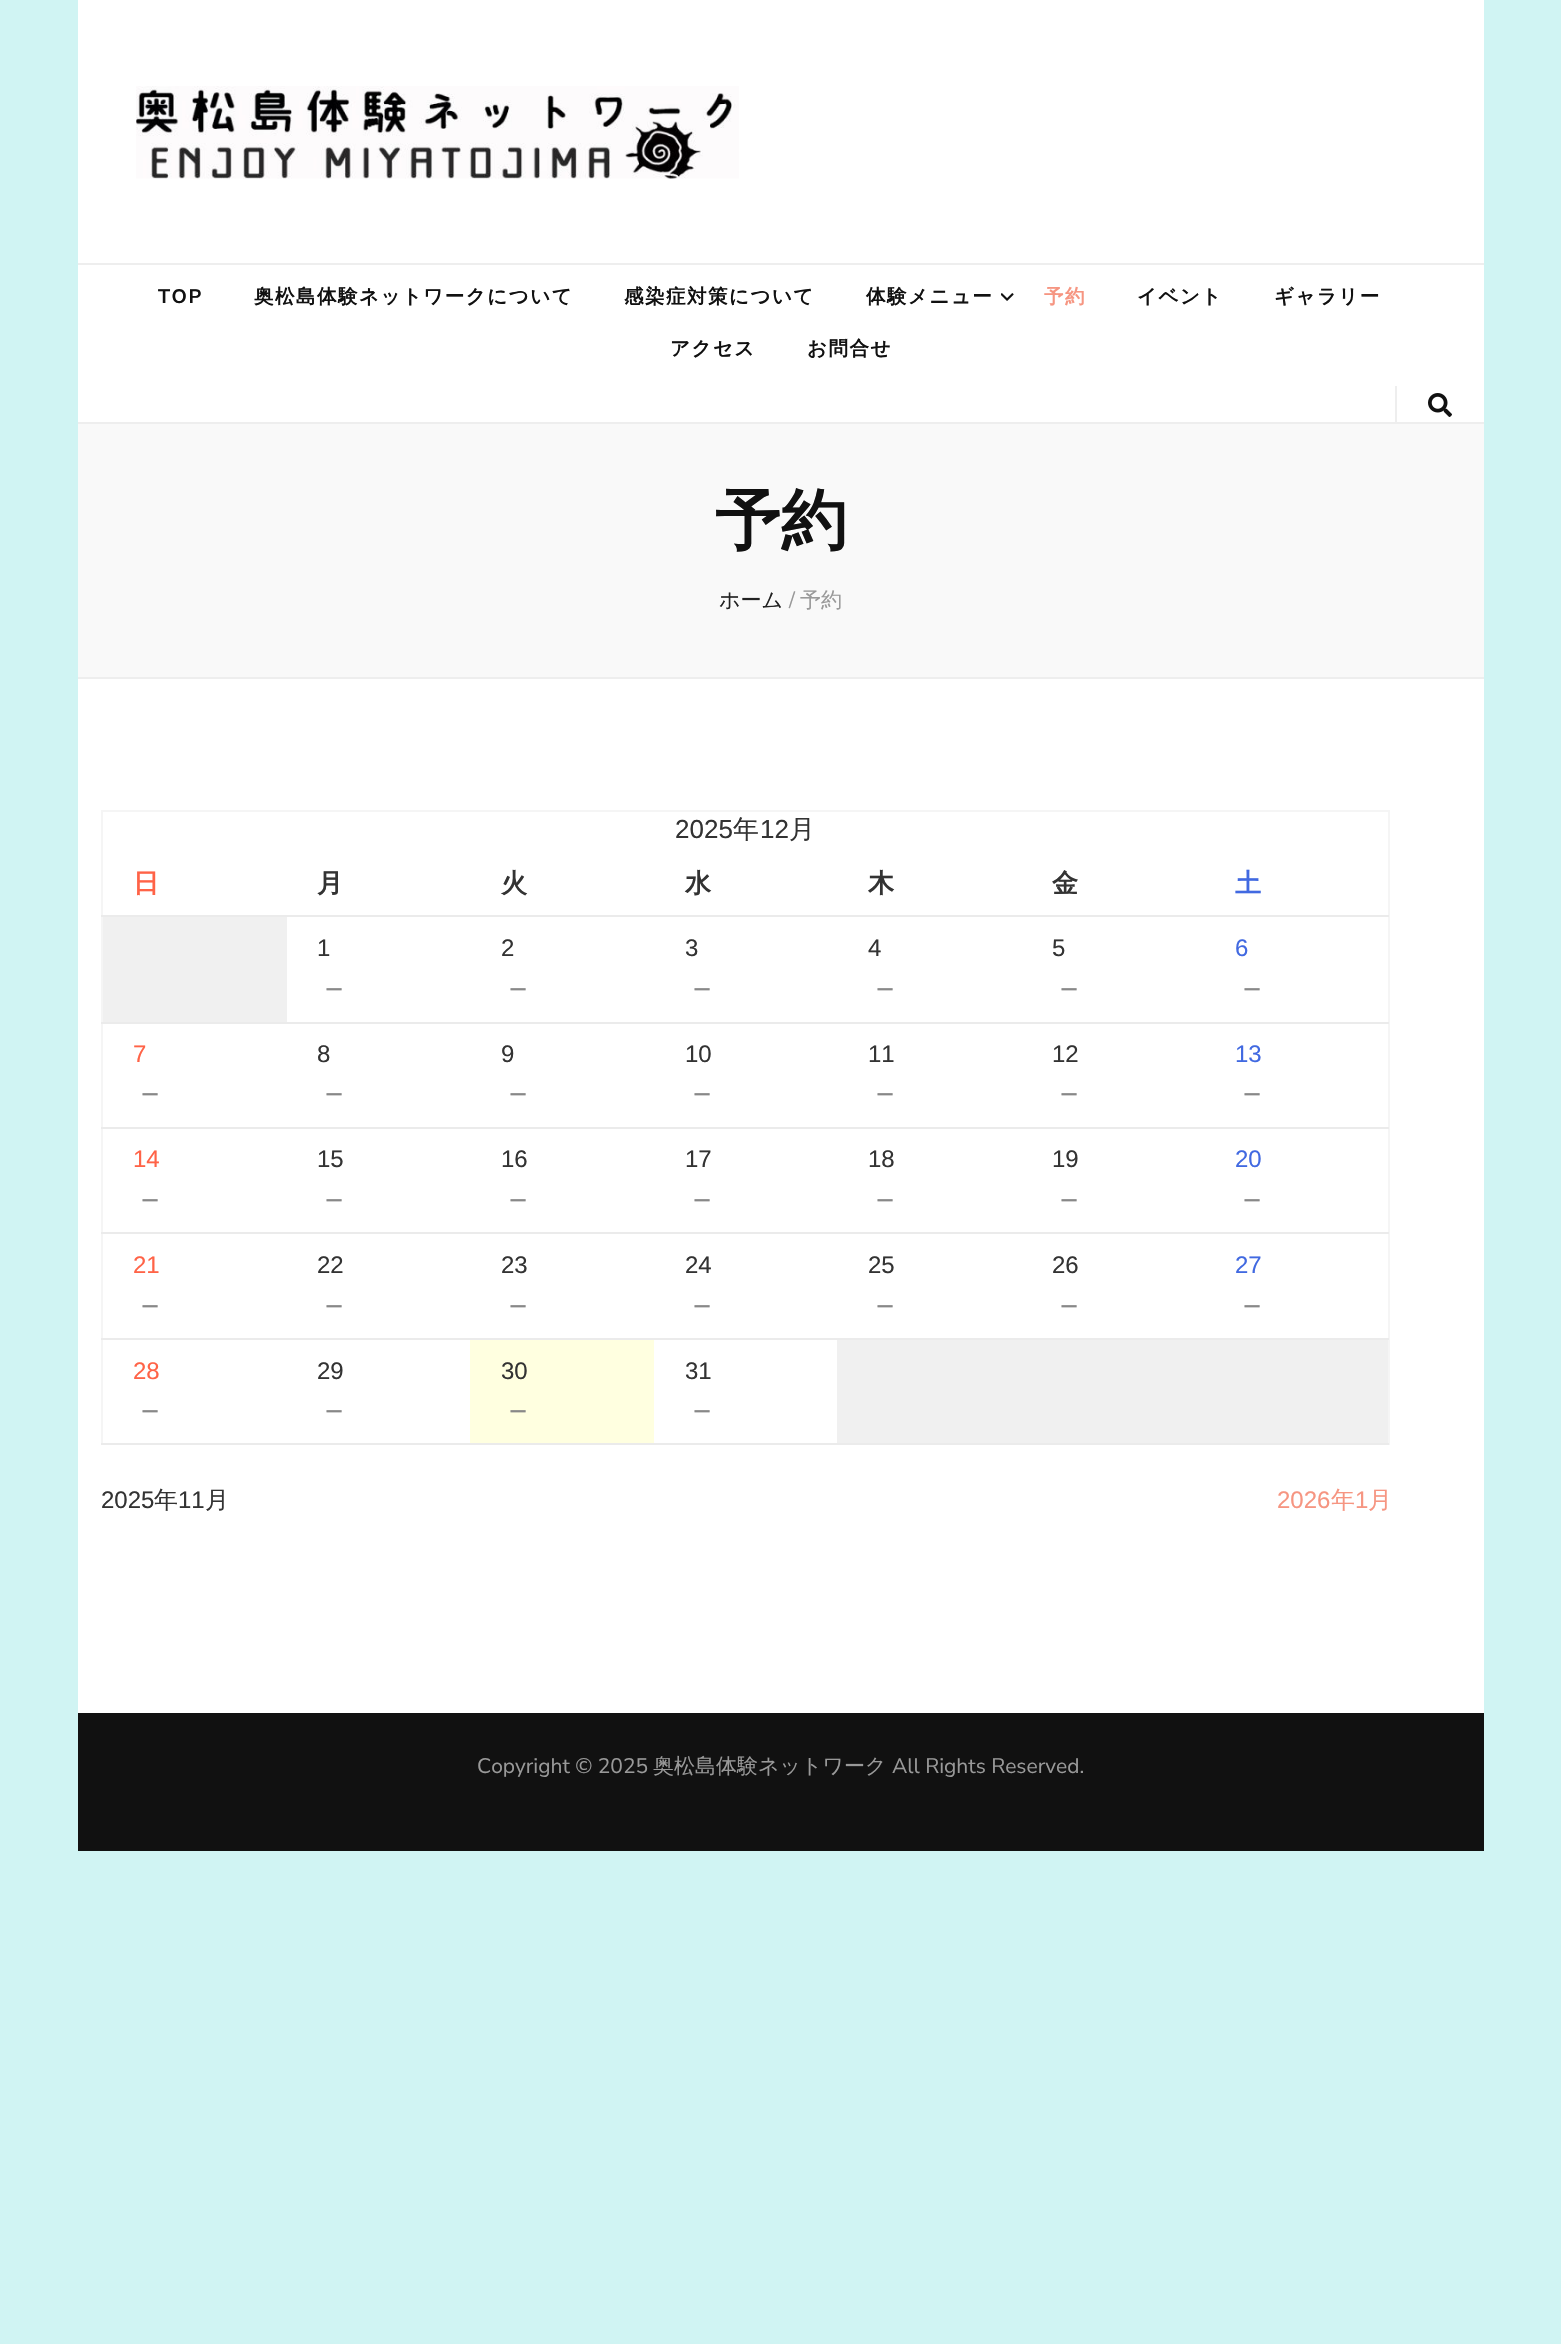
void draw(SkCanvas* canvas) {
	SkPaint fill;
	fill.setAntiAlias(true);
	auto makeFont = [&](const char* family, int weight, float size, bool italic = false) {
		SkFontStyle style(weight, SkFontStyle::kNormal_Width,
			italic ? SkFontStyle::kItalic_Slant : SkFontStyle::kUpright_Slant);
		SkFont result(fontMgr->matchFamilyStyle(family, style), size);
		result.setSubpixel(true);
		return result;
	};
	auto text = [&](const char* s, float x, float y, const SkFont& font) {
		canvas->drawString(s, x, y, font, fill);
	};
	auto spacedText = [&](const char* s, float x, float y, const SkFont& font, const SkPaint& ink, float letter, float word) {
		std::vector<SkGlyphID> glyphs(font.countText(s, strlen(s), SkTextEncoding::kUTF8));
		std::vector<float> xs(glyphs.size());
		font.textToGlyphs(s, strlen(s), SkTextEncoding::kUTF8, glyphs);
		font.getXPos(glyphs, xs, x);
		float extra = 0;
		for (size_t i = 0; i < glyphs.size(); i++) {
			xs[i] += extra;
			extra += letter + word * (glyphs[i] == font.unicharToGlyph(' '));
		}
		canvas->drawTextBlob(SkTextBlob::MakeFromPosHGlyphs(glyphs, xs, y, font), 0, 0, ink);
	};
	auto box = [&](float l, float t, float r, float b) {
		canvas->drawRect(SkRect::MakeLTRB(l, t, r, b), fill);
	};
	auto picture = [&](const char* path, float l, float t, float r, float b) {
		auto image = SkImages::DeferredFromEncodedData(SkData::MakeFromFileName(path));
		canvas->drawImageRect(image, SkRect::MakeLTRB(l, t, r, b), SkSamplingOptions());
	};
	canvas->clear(0xFFD0F4F3);
	fill.setColor(0xFFFFFFFF);
	box(78, 0, 1484, 1713);
	picture("image0.png", 136, 86, 739, 179);
	fill.setColor(0xFFEEEEEE);
	box(78, 263, 1484, 265);
	box(78, 422, 1484, 424);
	picture("image1.png", 1001, 293, 1014, 301);
	box(1395, 386, 1397, 422);
	picture("image2.png", 1428, 393, 1452, 417);
	fill.setColor(0xFFF9F9F9);
	box(78, 424, 1484, 677);
	fill.setColor(0xFFEEEEEE);
	box(78, 677, 1484, 679);
	fill.setColor(0xFFF5F5F5);
	box(101, 810, 1389, 812);
	box(1388, 810, 1390, 1445);
	box(101, 810, 103, 1445);
	fill.setColor(0xFFEBEBEB);
	box(101, 915, 1389, 917);
	box(101, 1022, 1389, 1024);
	fill.setColor(0xFFF0F0F0);
	box(103, 917, 287, 1022);
	fill.setColor(0xFFEBEBEB);
	box(101, 1127, 1389, 1129);
	box(101, 1232, 1389, 1234);
	box(101, 1338, 1389, 1340);
	box(101, 1443, 1389, 1445);
	fill.setColor(0xFFFFFFE0);
	box(470, 1340, 654, 1443);
	fill.setColor(0xFFF0F0F0);
	box(837, 1340, 1388, 1443);
	fill.setColor(0xFF111111);
	box(78, 1713, 1484, 1851);
	auto font1 = makeFont("Nunito Sans", 700, 19.5f);
	spacedText("TOP", 158, 303, font1, fill, 1.5f, 0);
	auto font2 = makeFont("WenQuanYi Zen Hei", 700, 19.5f);
	spacedText("奥松島体験ネットワークについて", 254, 303, font2, fill, 1.5f, 0);
	spacedText("感染症対策について", 624, 303, font2, fill, 1.5f, 0);
	spacedText("体験メニュー", 866, 303, font2, fill, 1.5f, 0);
	fill.setColor(0xFFF69581);
	spacedText("予約", 1044, 303, font2, fill, 1.5f, 0);
	fill.setColor(0xFF111111);
	spacedText("イベント", 1137, 303, font2, fill, 1.5f, 0);
	spacedText("ギャラリー", 1274, 303, font2, fill, 1.5f, 0);
	spacedText("アクセス", 670, 355, font2, fill, 1.5f, 0);
	spacedText("お問合せ", 807, 355, font2, fill, 1.5f, 0);
	auto font3 = makeFont("WenQuanYi Zen Hei", 700, 66);
	text("予約", 715, 543, font3);
	auto font4 = makeFont("WenQuanYi Zen Hei", 500, 21);
	fill.setColor(0xFF222222);
	text("ホーム", 719, 607, font4);
	auto font5 = makeFont("Nunito Sans", 400, 21);
	fill.setColor(0xFF999999);
	text("/", 789, 607, font5);
	text("予約", 800, 607, font4);
	auto font6 = makeFont("Liberation Sans", 400, 26);
	fill.setColor(0xFF333333);
	text("2025", 675, 838, font6);
	auto font7 = makeFont("WenQuanYi Zen Hei", 500, 26);
	text("年", 733, 838, font7);
	text("12", 760, 838, font6);
	text("月", 789, 838, font7);
	auto font8 = makeFont("WenQuanYi Zen Hei", 700, 26);
	fill.setColor(0xFFFF6347);
	text("日", 133, 892, font8);
	fill.setColor(0xFF333333);
	text("月", 317, 892, font8);
	text("火", 501, 892, font8);
	text("水", 685, 892, font8);
	text("木", 868, 892, font8);
	text("金", 1052, 892, font8);
	fill.setColor(0xFF4169E1);
	text("土", 1235, 892, font8);
	auto font9 = makeFont("Liberation Sans", 400, 24);
	fill.setColor(0xFF333333);
	text("1", 317, 956, font9);
	auto font10 = makeFont("WenQuanYi Zen Hei", 500, 34);
	fill.setColor(0xFF888888);
	text("－", 317, 999, font10);
	fill.setColor(0xFF333333);
	text("2", 501, 956, font9);
	fill.setColor(0xFF888888);
	text("－", 501, 999, font10);
	fill.setColor(0xFF333333);
	text("3", 685, 956, font9);
	fill.setColor(0xFF888888);
	text("－", 685, 999, font10);
	fill.setColor(0xFF333333);
	text("4", 868, 956, font9);
	fill.setColor(0xFF888888);
	text("－", 868, 999, font10);
	fill.setColor(0xFF333333);
	text("5", 1052, 956, font9);
	fill.setColor(0xFF888888);
	text("－", 1052, 999, font10);
	fill.setColor(0xFF4169E1);
	text("6", 1235, 956, font9);
	fill.setColor(0xFF888888);
	text("－", 1235, 999, font10);
	fill.setColor(0xFFFF6347);
	text("7", 133, 1062, font9);
	fill.setColor(0xFF888888);
	text("－", 133, 1104, font10);
	fill.setColor(0xFF333333);
	text("8", 317, 1062, font9);
	fill.setColor(0xFF888888);
	text("－", 317, 1104, font10);
	fill.setColor(0xFF333333);
	text("9", 501, 1062, font9);
	fill.setColor(0xFF888888);
	text("－", 501, 1104, font10);
	fill.setColor(0xFF333333);
	text("10", 685, 1062, font9);
	fill.setColor(0xFF888888);
	text("－", 685, 1104, font10);
	fill.setColor(0xFF333333);
	text("11", 868, 1062, font9);
	fill.setColor(0xFF888888);
	text("－", 868, 1104, font10);
	fill.setColor(0xFF333333);
	text("12", 1052, 1062, font9);
	fill.setColor(0xFF888888);
	text("－", 1052, 1104, font10);
	fill.setColor(0xFF4169E1);
	text("13", 1235, 1062, font9);
	fill.setColor(0xFF888888);
	text("－", 1235, 1104, font10);
	fill.setColor(0xFFFF6347);
	text("14", 133, 1167, font9);
	fill.setColor(0xFF888888);
	text("－", 133, 1210, font10);
	fill.setColor(0xFF333333);
	text("15", 317, 1167, font9);
	fill.setColor(0xFF888888);
	text("－", 317, 1210, font10);
	fill.setColor(0xFF333333);
	text("16", 501, 1167, font9);
	fill.setColor(0xFF888888);
	text("－", 501, 1210, font10);
	fill.setColor(0xFF333333);
	text("17", 685, 1167, font9);
	fill.setColor(0xFF888888);
	text("－", 685, 1210, font10);
	fill.setColor(0xFF333333);
	text("18", 868, 1167, font9);
	fill.setColor(0xFF888888);
	text("－", 868, 1210, font10);
	fill.setColor(0xFF333333);
	text("19", 1052, 1167, font9);
	fill.setColor(0xFF888888);
	text("－", 1052, 1210, font10);
	fill.setColor(0xFF4169E1);
	text("20", 1235, 1167, font9);
	fill.setColor(0xFF888888);
	text("－", 1235, 1210, font10);
	fill.setColor(0xFFFF6347);
	text("21", 133, 1273, font9);
	fill.setColor(0xFF888888);
	text("－", 133, 1316, font10);
	fill.setColor(0xFF333333);
	text("22", 317, 1273, font9);
	fill.setColor(0xFF888888);
	text("－", 317, 1316, font10);
	fill.setColor(0xFF333333);
	text("23", 501, 1273, font9);
	fill.setColor(0xFF888888);
	text("－", 501, 1316, font10);
	fill.setColor(0xFF333333);
	text("24", 685, 1273, font9);
	fill.setColor(0xFF888888);
	text("－", 685, 1316, font10);
	fill.setColor(0xFF333333);
	text("25", 868, 1273, font9);
	fill.setColor(0xFF888888);
	text("－", 868, 1316, font10);
	fill.setColor(0xFF333333);
	text("26", 1052, 1273, font9);
	fill.setColor(0xFF888888);
	text("－", 1052, 1316, font10);
	fill.setColor(0xFF4169E1);
	text("27", 1235, 1273, font9);
	fill.setColor(0xFF888888);
	text("－", 1235, 1316, font10);
	fill.setColor(0xFFFF6347);
	text("28", 133, 1379, font9);
	fill.setColor(0xFF888888);
	text("－", 133, 1421, font10);
	fill.setColor(0xFF333333);
	text("29", 317, 1379, font9);
	fill.setColor(0xFF888888);
	text("－", 317, 1421, font10);
	fill.setColor(0xFF333333);
	text("30", 501, 1379, font9);
	fill.setColor(0xFF888888);
	text("－", 501, 1421, font10);
	fill.setColor(0xFF333333);
	text("31", 685, 1379, font9);
	fill.setColor(0xFF888888);
	text("－", 685, 1421, font10);
	fill.setColor(0xFF333333);
	text("2025", 101, 1508, font9);
	auto font11 = makeFont("WenQuanYi Zen Hei", 500, 24);
	text("年", 154, 1508, font11);
	text("11", 178, 1508, font9);
	text("月", 205, 1508, font11);
	fill.setColor(0xFFF69581);
	text("2026", 1277, 1508, font9);
	text("年", 1331, 1508, font11);
	text("1", 1355, 1508, font9);
	text("月", 1368, 1508, font11);
	fill.setColor(0xFF999999);
	text("Copyright © 2025", 477, 1773, font5);
	text("奥松島体験ネットワーク", 653, 1773, font4);
	text("All Rights Reserved.", 892, 1773, font5);
}
